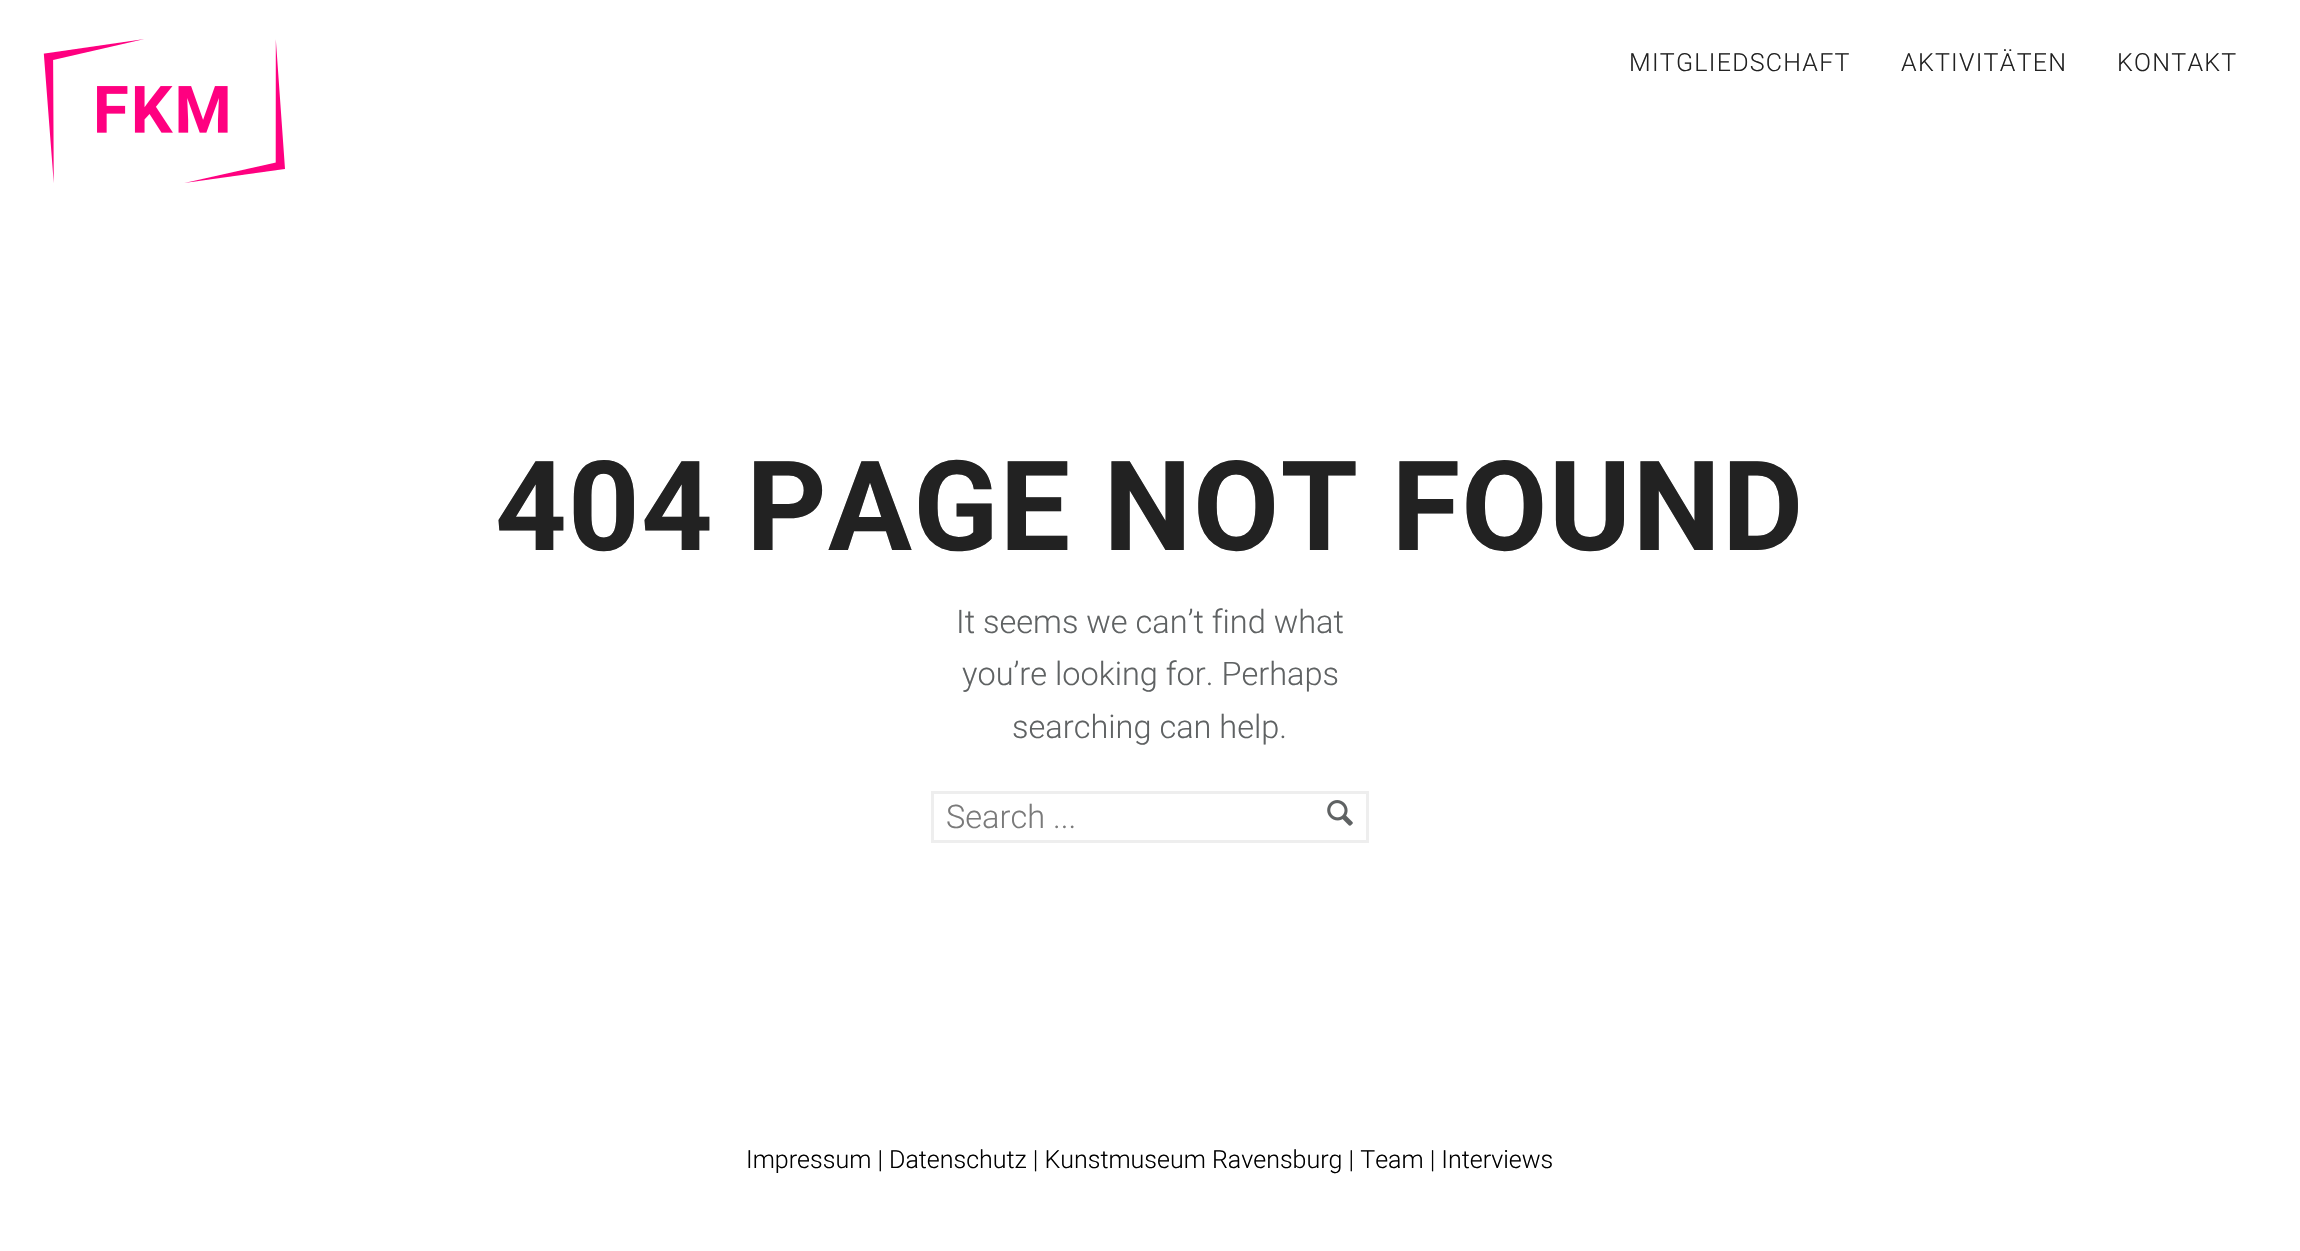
void draw(SkCanvas* canvas) {
	SkPaint fill;
	fill.setAntiAlias(true);
	auto makeFont = [&](const char* family, int weight, float size, bool italic = false) {
		SkFontStyle style(weight, SkFontStyle::kNormal_Width,
			italic ? SkFontStyle::kItalic_Slant : SkFontStyle::kUpright_Slant);
		SkFont result(fontMgr->matchFamilyStyle(family, style), size);
		result.setSubpixel(true);
		return result;
	};
	auto text = [&](const char* s, float x, float y, const SkFont& font) {
		canvas->drawString(s, x, y, font, fill);
	};
	auto spacedText = [&](const char* s, float x, float y, const SkFont& font, const SkPaint& ink, float letter, float word) {
		std::vector<SkGlyphID> glyphs(font.countText(s, strlen(s), SkTextEncoding::kUTF8));
		std::vector<float> xs(glyphs.size());
		font.textToGlyphs(s, strlen(s), SkTextEncoding::kUTF8, glyphs);
		font.getXPos(glyphs, xs, x);
		float extra = 0;
		for (size_t i = 0; i < glyphs.size(); i++) {
			xs[i] += extra;
			extra += letter + word * (glyphs[i] == font.unicharToGlyph(' '));
		}
		canvas->drawTextBlob(SkTextBlob::MakeFromPosHGlyphs(glyphs, xs, y, font), 0, 0, ink);
	};
	auto picture = [&](const char* path, float l, float t, float r, float b) {
		auto image = SkImages::DeferredFromEncodedData(SkData::MakeFromFileName(path));
		canvas->drawImageRect(image, SkRect::MakeLTRB(l, t, r, b), SkSamplingOptions());
	};
	canvas->clear(0xFFFFFFFF);
	picture("image0.png", 43, 39, 285, 183);
	fill.setStyle(SkPaint::kStroke_Style);
	fill.setStrokeWidth(3);
	fill.setColor(0xFFEEEEEE);
	canvas->drawRect(SkRect::MakeLTRB(932.5f, 792.5f, 1367.5f, 841.5f), fill);
	picture("image1.png", 1327, 800, 1353, 826);
	auto font1 = makeFont("Roboto", 300, 25);
	fill.setStyle(SkPaint::kFill_Style);
	fill.setColor(0xFF222222);
	spacedText("MITGLIEDSCHAFT", 1629, 71, font1, fill, 1.25f, 0);
	spacedText("AKTIVITÄTEN", 1901, 71, font1, fill, 1.25f, 0);
	spacedText("KONTAKT", 2117, 71, font1, fill, 1.25f, 0);
	auto font2 = makeFont("Roboto", 700, 125);
	spacedText("404 PAGE NOT FOUND", 495, 550, font2, fill, 1.25f, 0);
	auto font3 = makeFont("Roboto", 300, 32.5f);
	fill.setColor(0xFF5F6263);
	text("It seems we can’t find what", 956, 633, font3);
	text("you’re looking for. Perhaps", 962, 685, font3);
	text("searching can help.", 1012, 738, font3);
	fill.setColor(0xFF7A7A7A);
	text("Search ...", 946, 828, font3);
	fill.setColor(0xFF000000);
	text("Impressum | Datenschutz | Kunstmuseum Ravensburg | Team | Interviews", 746, 1168, font1);
}
